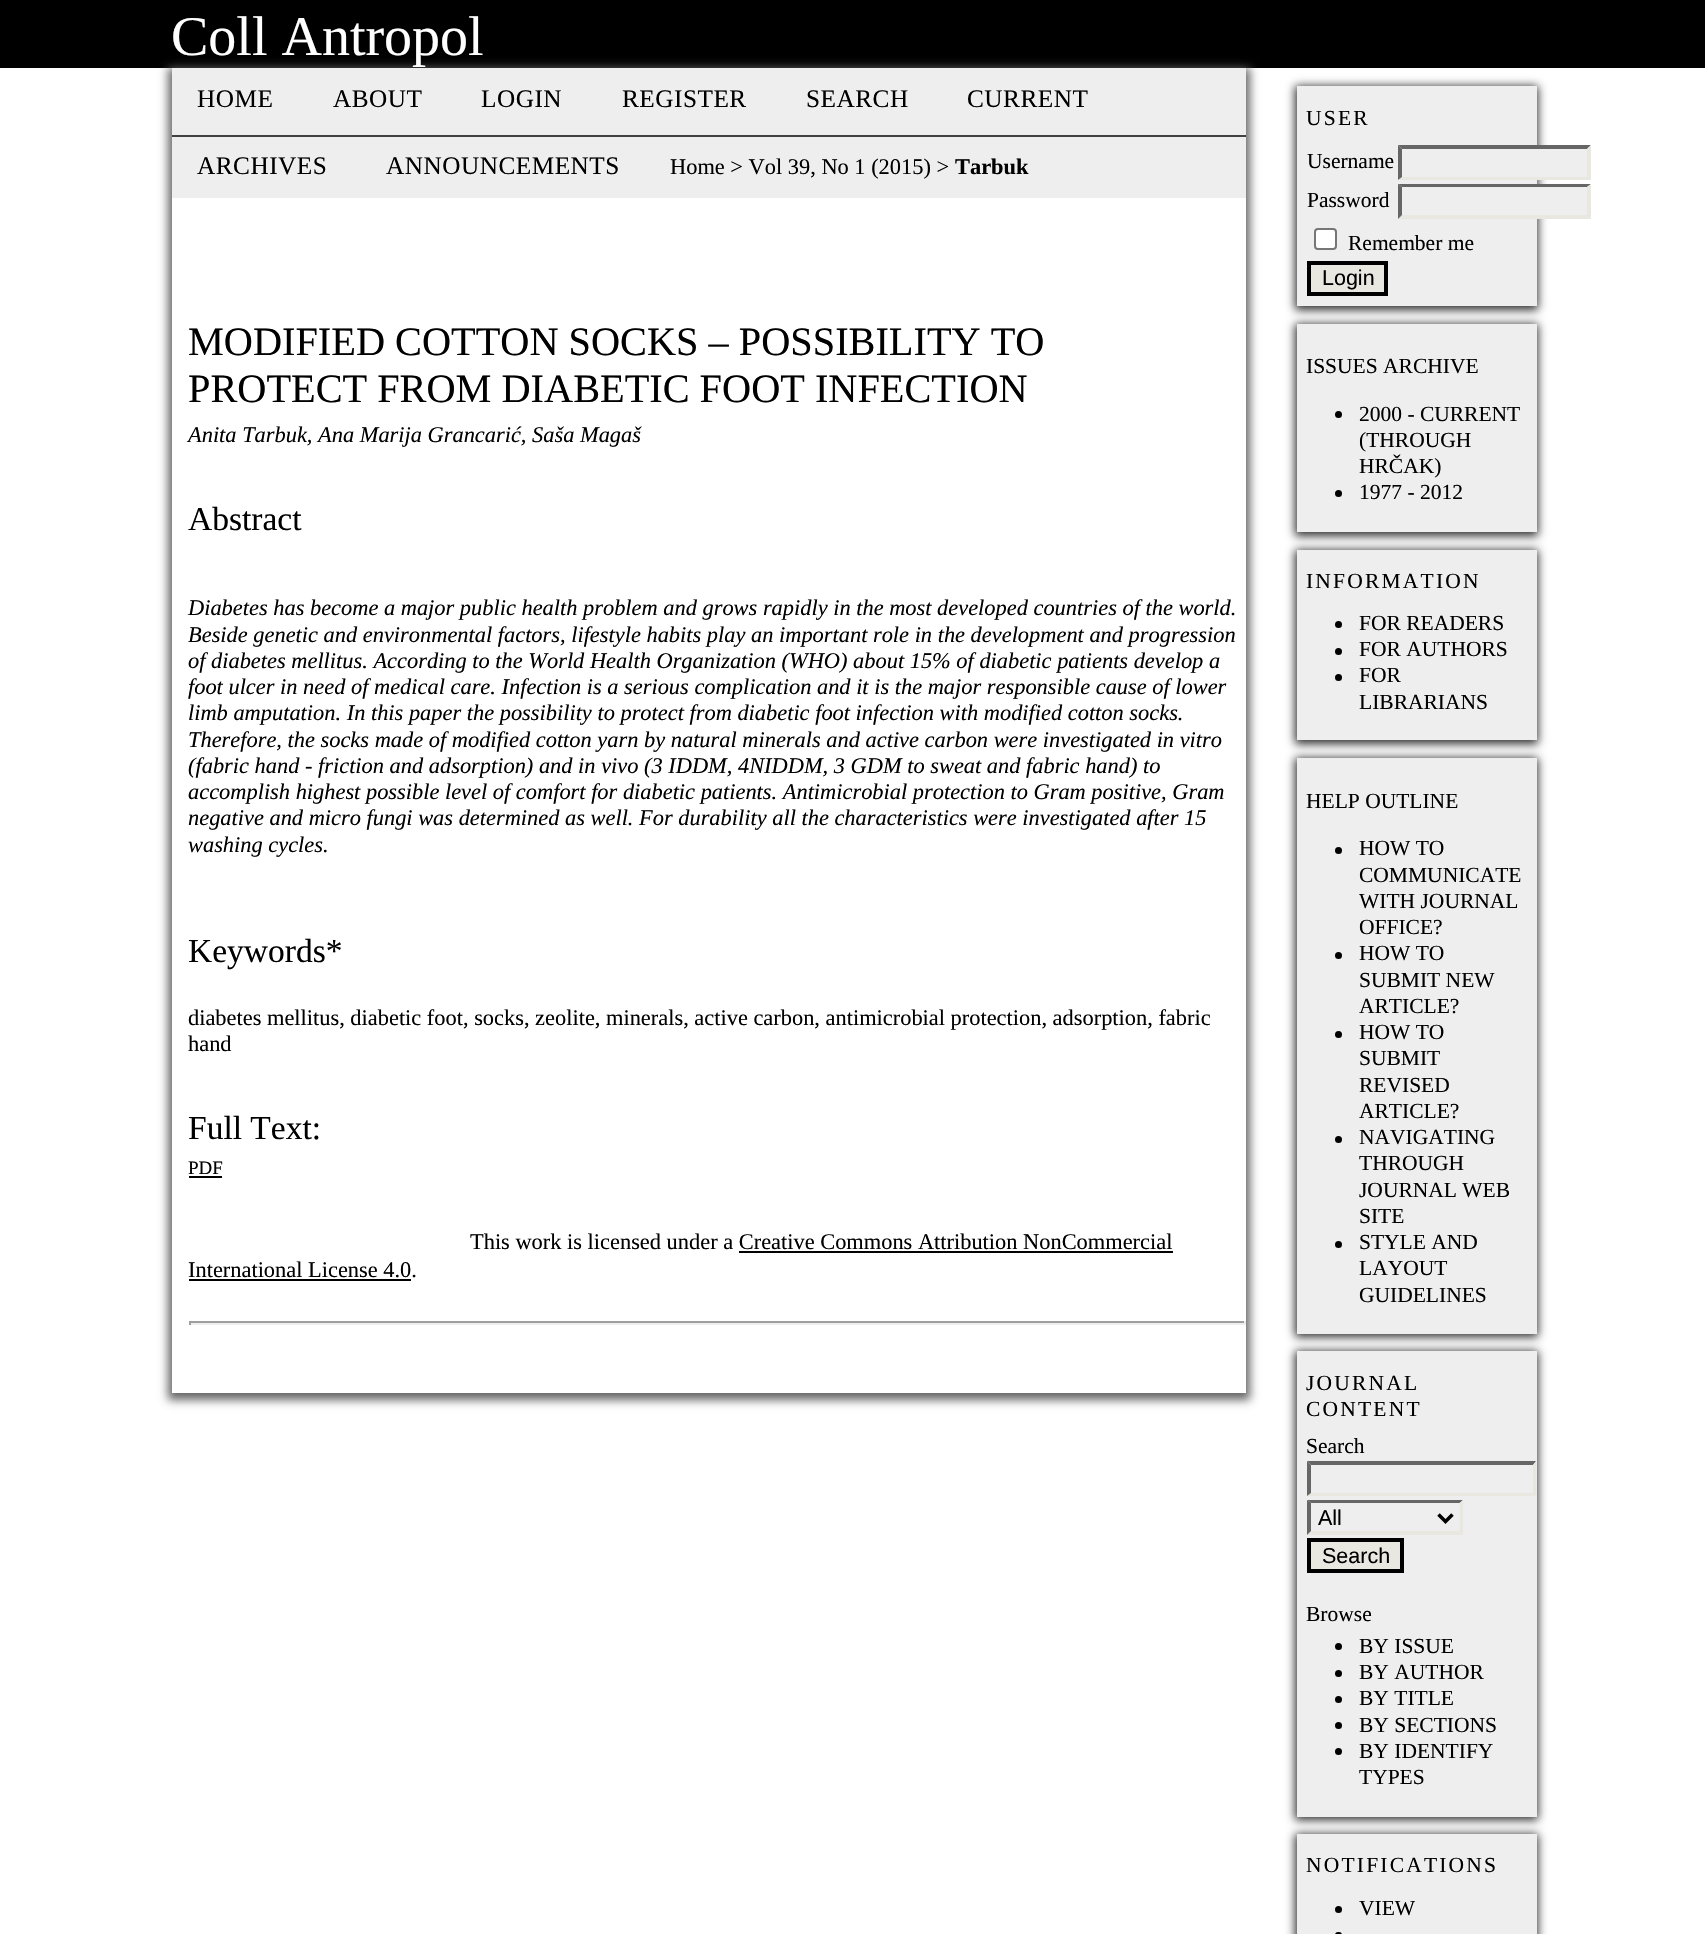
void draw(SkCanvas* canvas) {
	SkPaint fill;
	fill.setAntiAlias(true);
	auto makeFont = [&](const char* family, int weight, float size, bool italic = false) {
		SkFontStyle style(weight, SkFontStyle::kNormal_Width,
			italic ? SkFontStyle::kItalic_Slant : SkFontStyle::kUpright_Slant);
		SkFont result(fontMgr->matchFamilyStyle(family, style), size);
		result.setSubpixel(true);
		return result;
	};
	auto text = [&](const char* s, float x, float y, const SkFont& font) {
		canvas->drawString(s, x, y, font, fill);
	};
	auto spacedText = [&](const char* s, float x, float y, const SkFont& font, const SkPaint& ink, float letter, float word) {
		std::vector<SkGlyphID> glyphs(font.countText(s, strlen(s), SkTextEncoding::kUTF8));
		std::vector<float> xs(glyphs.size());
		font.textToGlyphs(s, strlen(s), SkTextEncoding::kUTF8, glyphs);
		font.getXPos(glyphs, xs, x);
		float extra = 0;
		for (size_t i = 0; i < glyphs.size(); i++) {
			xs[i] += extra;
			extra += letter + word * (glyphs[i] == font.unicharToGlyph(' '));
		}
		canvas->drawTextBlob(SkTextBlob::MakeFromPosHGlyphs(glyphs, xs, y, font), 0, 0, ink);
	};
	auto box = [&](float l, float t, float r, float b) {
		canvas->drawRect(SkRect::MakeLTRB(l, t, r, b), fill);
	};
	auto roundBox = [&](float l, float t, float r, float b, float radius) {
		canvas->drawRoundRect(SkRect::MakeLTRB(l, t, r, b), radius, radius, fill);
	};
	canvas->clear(0xFFFFFFFF);
	fill.setColor(0xFF000000);
	box(0, 0, 1705, 68);
	fill.setColor(0xFF666666);
	fill.setMaskFilter(SkMaskFilter::MakeBlur(kNormal_SkBlurStyle, 4.5f));
	canvas->drawRect(SkRect::MakeLTRB(168, 68, 1250, 1400), fill);
	fill.setMaskFilter(nullptr);
	fill.setColor(0xFFFFFFFF);
	box(172, 198, 1246, 1393);
	fill.setColor(0xFFEEEEEE);
	box(172, 68, 1246, 135);
	fill.setColor(0xFF414141);
	box(172, 135, 1246, 137);
	fill.setColor(0xFFEEEEEE);
	box(172, 137, 1246, 198);
	fill.setColor(0xFF000000);
	box(189, 1176, 222, 1178);
	box(739, 1251, 1173, 1253);
	box(189, 1279, 411, 1281);
	fill.setColor(0xFF9F9F9F);
	box(189, 1321, 1246, 1323);
	fill.setColor(0xFFEEEEEE);
	box(1244, 1321, 1246, 1325);
	box(189, 1323, 1246, 1325);
	fill.setColor(0xFF9F9F9F);
	box(189, 1321, 191, 1325);
	fill.setColor(0xFF2F2F2F);
	fill.setMaskFilter(SkMaskFilter::MakeBlur(kNormal_SkBlurStyle, 4.5f));
	canvas->drawRect(SkRect::MakeLTRB(1295, 86, 1538, 310), fill);
	fill.setMaskFilter(nullptr);
	fill.setColor(0xFFEEEEEE);
	box(1297, 86, 1537, 306);
	box(1537, 145, 1591, 180);
	fill.setColor(0xFF666666);
	canvas->drawPath(SkPathBuilder().moveTo(1398, 145).lineTo(1591, 145).lineTo(1587, 149).lineTo(1402, 149).close().detach(), fill);
	fill.setColor(0xFFE8E8E1);
	canvas->drawPath(SkPathBuilder().moveTo(1591, 145).lineTo(1591, 180).lineTo(1587, 177).lineTo(1587, 149).close().detach(), fill);
	canvas->drawPath(SkPathBuilder().moveTo(1591, 180).lineTo(1398, 180).lineTo(1402, 177).lineTo(1587, 177).close().detach(), fill);
	fill.setColor(0xFF666666);
	canvas->drawPath(SkPathBuilder().moveTo(1398, 180).lineTo(1398, 145).lineTo(1402, 149).lineTo(1402, 177).close().detach(), fill);
	fill.setColor(0xFFEEEEEE);
	box(1537, 184, 1591, 219);
	fill.setColor(0xFF666666);
	canvas->drawPath(SkPathBuilder().moveTo(1398, 184).lineTo(1591, 184).lineTo(1587, 187).lineTo(1402, 187).close().detach(), fill);
	fill.setColor(0xFFE8E8E1);
	canvas->drawPath(SkPathBuilder().moveTo(1591, 184).lineTo(1591, 219).lineTo(1587, 215).lineTo(1587, 187).close().detach(), fill);
	canvas->drawPath(SkPathBuilder().moveTo(1591, 219).lineTo(1398, 219).lineTo(1402, 215).lineTo(1587, 215).close().detach(), fill);
	fill.setColor(0xFF666666);
	canvas->drawPath(SkPathBuilder().moveTo(1398, 219).lineTo(1398, 184).lineTo(1402, 187).lineTo(1402, 215).close().detach(), fill);
	fill.setColor(0xFFFFFFFF);
	canvas->drawRoundRect(SkRect::MakeLTRB(1315, 229, 1336, 249), 3, 3, fill);
	fill.setStyle(SkPaint::kStroke_Style);
	fill.setStrokeWidth(2);
	fill.setColor(0xFF767676);
	canvas->drawRoundRect(SkRect::MakeLTRB(1315, 229, 1336, 249), 3, 3, fill);
	fill.setStyle(SkPaint::kFill_Style);
	fill.setColor(0xFFE8E8E1);
	canvas->drawRect(SkRect::MakeLTRB(1309, 263, 1386, 294), fill);
	fill.setStyle(SkPaint::kStroke_Style);
	fill.setStrokeWidth(4);
	fill.setColor(0xFF000000);
	canvas->drawRect(SkRect::MakeLTRB(1309, 263, 1386, 294), fill);
	fill.setStyle(SkPaint::kFill_Style);
	fill.setColor(0xFF2F2F2F);
	fill.setMaskFilter(SkMaskFilter::MakeBlur(kNormal_SkBlurStyle, 4.5f));
	canvas->drawRect(SkRect::MakeLTRB(1295, 324, 1538, 536), fill);
	fill.setMaskFilter(nullptr);
	fill.setColor(0xFFEEEEEE);
	box(1297, 324, 1537, 532);
	fill.setColor(0xFF000000);
	canvas->drawCircle(1338.5f, 414.5f, 3.5f, fill);
	canvas->drawCircle(1338.5f, 493.5f, 3.5f, fill);
	fill.setColor(0xFF2F2F2F);
	fill.setMaskFilter(SkMaskFilter::MakeBlur(kNormal_SkBlurStyle, 4.5f));
	canvas->drawRect(SkRect::MakeLTRB(1295, 550, 1538, 744), fill);
	fill.setMaskFilter(nullptr);
	fill.setColor(0xFFEEEEEE);
	box(1297, 550, 1537, 740);
	fill.setColor(0xFF000000);
	canvas->drawCircle(1338.5f, 624.5f, 3.5f, fill);
	canvas->drawCircle(1338.5f, 651.5f, 3.5f, fill);
	canvas->drawCircle(1338.5f, 677.5f, 3.5f, fill);
	fill.setColor(0xFF2F2F2F);
	fill.setMaskFilter(SkMaskFilter::MakeBlur(kNormal_SkBlurStyle, 4.5f));
	canvas->drawRect(SkRect::MakeLTRB(1295, 758, 1538, 1337), fill);
	fill.setMaskFilter(nullptr);
	fill.setColor(0xFFEEEEEE);
	box(1297, 758, 1537, 1334);
	fill.setColor(0xFF000000);
	canvas->drawCircle(1338.5f, 850.5f, 3.5f, fill);
	canvas->drawCircle(1338.5f, 955.5f, 3.5f, fill);
	canvas->drawCircle(1338.5f, 1034.5f, 3.5f, fill);
	canvas->drawCircle(1338.5f, 1139.5f, 3.5f, fill);
	canvas->drawCircle(1338.5f, 1244.5f, 3.5f, fill);
	fill.setColor(0xFF2F2F2F);
	fill.setMaskFilter(SkMaskFilter::MakeBlur(kNormal_SkBlurStyle, 4.5f));
	canvas->drawRect(SkRect::MakeLTRB(1295, 1351, 1538, 1820), fill);
	fill.setMaskFilter(nullptr);
	fill.setColor(0xFFEEEEEE);
	box(1297, 1351, 1537, 1817);
	fill.setColor(0xFF666666);
	canvas->drawPath(SkPathBuilder().moveTo(1307, 1461).lineTo(1536, 1461).lineTo(1533, 1465).lineTo(1311, 1465).close().detach(), fill);
	fill.setColor(0xFFE8E8E1);
	canvas->drawPath(SkPathBuilder().moveTo(1536.5f, 1461).lineTo(1536.5f, 1496).lineTo(1533, 1493).lineTo(1533, 1465).close().detach(), fill);
	canvas->drawPath(SkPathBuilder().moveTo(1536, 1496).lineTo(1307, 1496).lineTo(1311, 1493).lineTo(1533, 1493).close().detach(), fill);
	fill.setColor(0xFF666666);
	canvas->drawPath(SkPathBuilder().moveTo(1307, 1496).lineTo(1307, 1461).lineTo(1311, 1465).lineTo(1311, 1493).close().detach(), fill);
	canvas->drawPath(SkPathBuilder().moveTo(1307, 1500).lineTo(1463, 1500).lineTo(1460, 1503).lineTo(1311, 1503).close().detach(), fill);
	fill.setColor(0xFFE8E8E1);
	canvas->drawPath(SkPathBuilder().moveTo(1463, 1500).lineTo(1463, 1535).lineTo(1459.5f, 1531).lineTo(1459.5f, 1503).close().detach(), fill);
	canvas->drawPath(SkPathBuilder().moveTo(1463, 1535).lineTo(1307, 1535).lineTo(1311, 1531).lineTo(1460, 1531).close().detach(), fill);
	fill.setColor(0xFF666666);
	canvas->drawPath(SkPathBuilder().moveTo(1307, 1535).lineTo(1307, 1500).lineTo(1311, 1503).lineTo(1311, 1531).close().detach(), fill);
	fill.setStyle(SkPaint::kStroke_Style);
	fill.setStrokeWidth(3.5f);
	fill.setColor(0xFF000000);
	canvas->drawPath(SkPathBuilder().moveTo(1438.5f, 1514.5f).lineTo(1445.5f, 1521.5f).lineTo(1452.5f, 1514.5f).detach(), fill);
	fill.setStyle(SkPaint::kFill_Style);
	fill.setColor(0xFFE8E8E1);
	canvas->drawRect(SkRect::MakeLTRB(1309, 1540, 1402, 1571), fill);
	fill.setStyle(SkPaint::kStroke_Style);
	fill.setStrokeWidth(4);
	fill.setColor(0xFF000000);
	canvas->drawRect(SkRect::MakeLTRB(1309, 1540, 1402, 1571), fill);
	fill.setStyle(SkPaint::kFill_Style);
	canvas->drawCircle(1338.5f, 1646.5f, 3.5f, fill);
	canvas->drawCircle(1338.5f, 1673.5f, 3.5f, fill);
	canvas->drawCircle(1338.5f, 1699.5f, 3.5f, fill);
	canvas->drawCircle(1338.5f, 1725.5f, 3.5f, fill);
	canvas->drawCircle(1338.5f, 1751.5f, 3.5f, fill);
	fill.setColor(0xFF2F2F2F);
	fill.setMaskFilter(SkMaskFilter::MakeBlur(kNormal_SkBlurStyle, 4.5f));
	canvas->drawRect(SkRect::MakeLTRB(1295, 1834, 1538, 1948), fill);
	fill.setMaskFilter(nullptr);
	fill.setColor(0xFFEEEEEE);
	box(1297, 1834, 1537, 1934);
	fill.setColor(0xFF000000);
	canvas->drawCircle(1338.5f, 1909.5f, 3.5f, fill);
	roundBox(1335, 1932, 1342, 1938, 3.5f);
	auto font1 = makeFont("Liberation Serif", 400, 56);
	fill.setColor(0xFFFFFFFF);
	text("Coll Antropol", 171, 55, font1);
	auto font2 = makeFont("Liberation Serif", 400, 25.25f);
	fill.setColor(0xFF000000);
	spacedText("HOME", 197, 107, font2, fill, 0.5f, 0);
	spacedText("ABOUT", 333, 107, font2, fill, 0.5f, 0);
	spacedText("LOGIN", 481, 107, font2, fill, 0.5f, 0);
	spacedText("REGISTER", 622, 107, font2, fill, 0.5f, 0);
	spacedText("SEARCH", 806, 107, font2, fill, 0.5f, 0);
	spacedText("CURRENT", 967, 107, font2, fill, 0.5f, 0);
	spacedText("ARCHIVES", 197, 174, font2, fill, 0.5f, 0);
	spacedText("ANNOUNCEMENTS", 386, 174, font2, fill, 0.5f, 0);
	auto font3 = makeFont("Liberation Serif", 400, 22.4f);
	text("Home > Vol 39, No 1 (2015) >", 670, 174, font3);
	auto font4 = makeFont("Liberation Serif", 700, 22.4f);
	text("Tarbuk", 955, 174, font4);
	auto font5 = makeFont("Liberation Serif", 400, 40.3f);
	text("MODIFIED COTTON SOCKS – POSSIBILITY TO", 188, 355, font5);
	text("PROTECT FROM DIABETIC FOOT INFECTION", 188, 402, font5);
	auto font6 = makeFont("Liberation Serif", 400, 22.4f, true);
	text("Anita Tarbuk, Ana Marija Grancarić, Saša Magaš", 188, 442, font6);
	auto font7 = makeFont("Liberation Serif", 400, 33.5f);
	text("Abstract", 188, 530, font7);
	text("Diabetes has become a major public health problem and grows rapidly in the most developed countries of the world.", 188, 615, font6);
	text("Beside genetic and environmental factors, lifestyle habits play an important role in the development and progression", 188, 642, font6);
	text("of diabetes mellitus. According to the World Health Organization (WHO) about 15% of diabetic patients develop a", 188, 668, font6);
	text("foot ulcer in need of medical care. Infection is a serious complication and it is the major responsible cause of lower", 188, 694, font6);
	text("limb amputation. In this paper the possibility to protect from diabetic foot infection with modified cotton socks.", 188, 720, font6);
	text("Therefore, the socks made of modified cotton yarn by natural minerals and active carbon were investigated in vitro", 188, 747, font6);
	text("(fabric hand - friction and adsorption) and in vivo (3 IDDM, 4NIDDM, 3 GDM to sweat and fabric hand) to", 188, 773, font6);
	text("accomplish highest possible level of comfort for diabetic patients. Antimicrobial protection to Gram positive, Gram", 188, 799, font6);
	text("negative and micro fungi was determined as well. For durability all the characteristics were investigated after 15", 188, 825, font6);
	text("washing cycles.", 188, 852, font6);
	text("Keywords*", 188, 962, font7);
	text("diabetes mellitus, diabetic foot, socks, zeolite, minerals, active carbon, antimicrobial protection, adsorption, fabric", 188, 1025, font3);
	text("hand", 188, 1051, font3);
	text("Full Text:", 188, 1139, font7);
	auto font8 = makeFont("Liberation Serif", 400, 19);
	text("PDF", 188, 1174, font8);
	text("This work is licensed under a Creative Commons Attribution NonCommercial", 470, 1249, font3);
	text("International License 4.0.", 188, 1277, font3);
	auto font9 = makeFont("Liberation Serif", 400, 21.5f);
	spacedText("USER", 1306, 125, font9, fill, 2.2f, 0);
	text("Username", 1307, 168, font9);
	text("Password", 1307, 207, font9);
	text("Remember me", 1348, 250, font9);
	auto font10 = makeFont("Liberation Sans", 400, 21.5f);
	text("Login", 1322, 285, font10);
	text("ISSUES ARCHIVE", 1306, 373, font9);
	text("2000 - CURRENT", 1359, 421, font9);
	text("(THROUGH", 1359, 447, font9);
	text("HRČAK)", 1359, 473, font9);
	text("1977 - 2012", 1359, 499, font9);
	spacedText("INFORMATION", 1306, 588, font9, fill, 2.2f, 0);
	text("FOR READERS", 1359, 630, font9);
	text("FOR AUTHORS", 1359, 656, font9);
	text("FOR", 1359, 682, font9);
	text("LIBRARIANS", 1359, 709, font9);
	text("HELP OUTLINE", 1306, 808, font9);
	text("HOW TO", 1359, 855, font9);
	text("COMMUNICATE", 1359, 882, font9);
	text("WITH JOURNAL", 1359, 908, font9);
	text("OFFICE?", 1359, 934, font9);
	text("HOW TO", 1359, 960, font9);
	text("SUBMIT NEW", 1359, 987, font9);
	text("ARTICLE?", 1359, 1013, font9);
	text("HOW TO", 1359, 1039, font9);
	text("SUBMIT", 1359, 1065, font9);
	text("REVISED", 1359, 1092, font9);
	text("ARTICLE?", 1359, 1118, font9);
	text("NAVIGATING", 1359, 1144, font9);
	text("THROUGH", 1359, 1170, font9);
	text("JOURNAL WEB", 1359, 1197, font9);
	text("SITE", 1359, 1223, font9);
	text("STYLE AND", 1359, 1249, font9);
	text("LAYOUT", 1359, 1275, font9);
	text("GUIDELINES", 1359, 1302, font9);
	spacedText("JOURNAL", 1306, 1390, font9, fill, 2.2f, 0);
	spacedText("CONTENT", 1306, 1416, font9, fill, 2.2f, 0);
	text("Search", 1306, 1453, font9);
	text("All", 1318, 1525, font10);
	text("Search", 1322, 1563, font10);
	text("Browse", 1306, 1621, font9);
	text("BY ISSUE", 1359, 1653, font9);
	text("BY AUTHOR", 1359, 1679, font9);
	text("BY TITLE", 1359, 1705, font9);
	text("BY SECTIONS", 1359, 1732, font9);
	text("BY IDENTIFY", 1359, 1758, font9);
	text("TYPES", 1359, 1784, font9);
	spacedText("NOTIFICATIONS", 1306, 1872, font9, fill, 2.2f, 0);
	text("VIEW", 1359, 1915, font9);
}
